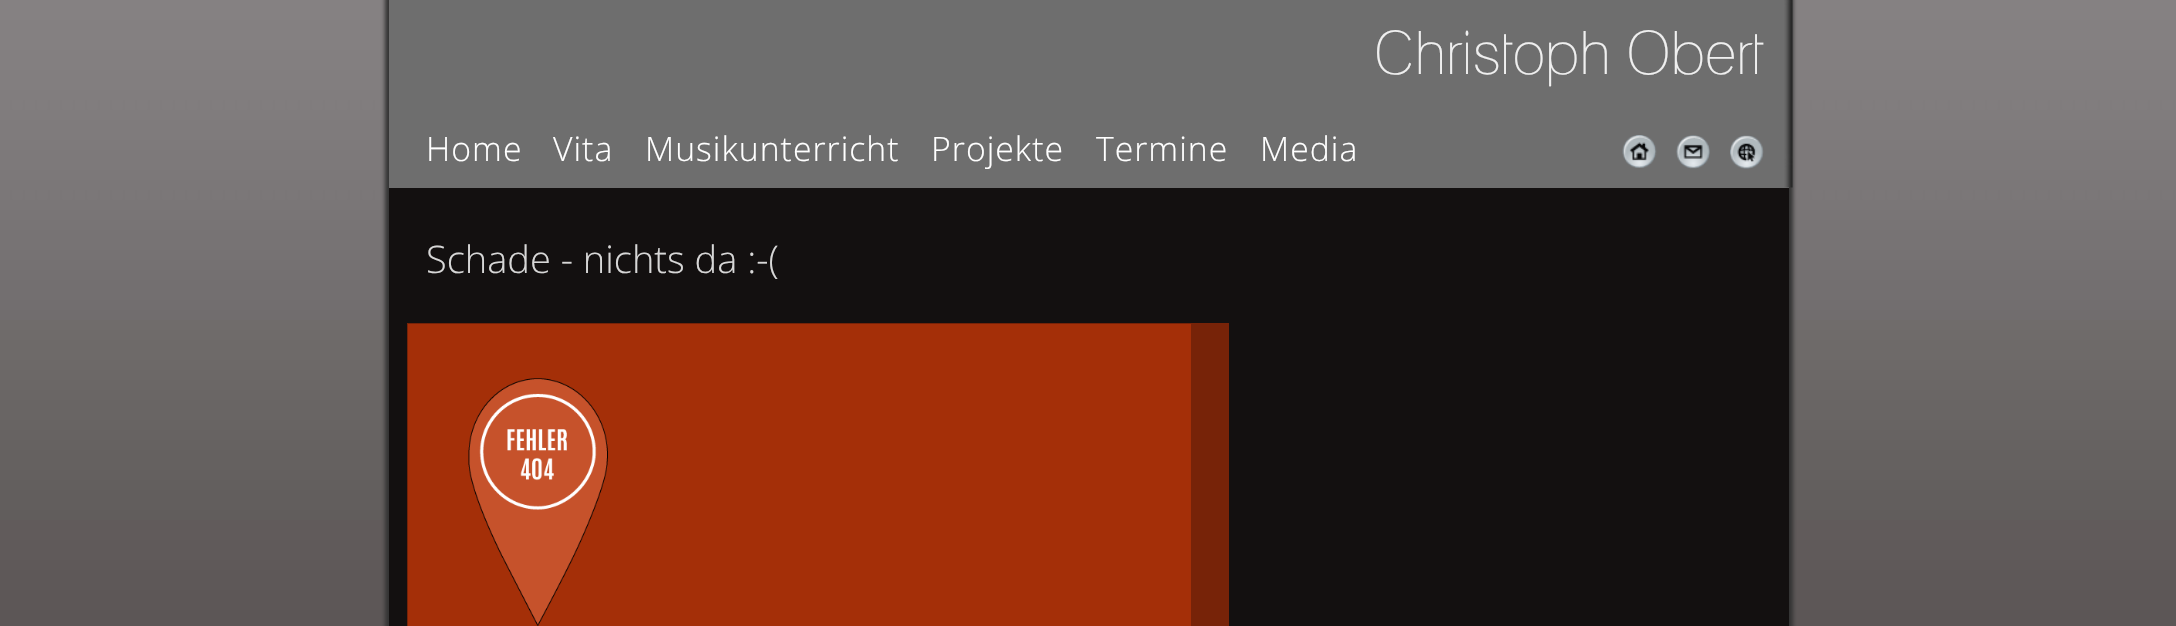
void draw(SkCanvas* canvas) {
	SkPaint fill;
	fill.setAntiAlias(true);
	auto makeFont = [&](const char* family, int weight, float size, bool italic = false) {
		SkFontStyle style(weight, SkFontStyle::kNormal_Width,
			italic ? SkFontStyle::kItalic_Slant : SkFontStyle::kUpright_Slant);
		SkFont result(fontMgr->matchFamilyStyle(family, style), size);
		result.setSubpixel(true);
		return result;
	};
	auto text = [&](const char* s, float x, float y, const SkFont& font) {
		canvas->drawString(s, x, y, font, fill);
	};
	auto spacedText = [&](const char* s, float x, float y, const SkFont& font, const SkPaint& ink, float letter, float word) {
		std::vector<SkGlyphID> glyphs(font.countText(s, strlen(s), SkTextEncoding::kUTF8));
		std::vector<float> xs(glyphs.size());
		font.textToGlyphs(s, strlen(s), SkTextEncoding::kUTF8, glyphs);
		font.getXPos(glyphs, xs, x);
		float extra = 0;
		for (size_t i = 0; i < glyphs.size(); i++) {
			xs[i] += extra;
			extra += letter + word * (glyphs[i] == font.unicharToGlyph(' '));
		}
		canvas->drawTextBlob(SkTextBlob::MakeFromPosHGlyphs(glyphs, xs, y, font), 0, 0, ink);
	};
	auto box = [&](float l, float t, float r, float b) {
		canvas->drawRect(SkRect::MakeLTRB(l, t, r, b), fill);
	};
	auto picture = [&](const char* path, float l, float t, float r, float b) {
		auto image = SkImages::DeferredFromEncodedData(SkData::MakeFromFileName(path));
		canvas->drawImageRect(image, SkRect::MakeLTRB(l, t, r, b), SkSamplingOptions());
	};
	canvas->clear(0xFFFFFFFF);
	picture("image0.png", 0, 0, 2176, 626);
	fill.setColor(0xFF333333);
	fill.setMaskFilter(SkMaskFilter::MakeBlur(kNormal_SkBlurStyle, 2));
	canvas->drawRect(SkRect::MakeLTRB(385, -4, 1785, 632), fill);
	fill.setMaskFilter(nullptr);
	fill.setMaskFilter(SkMaskFilter::MakeBlur(kNormal_SkBlurStyle, 2));
	canvas->drawRect(SkRect::MakeLTRB(393, -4, 1793, 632), fill);
	fill.setMaskFilter(nullptr);
	fill.setColor(0xFF6E6E6E);
	box(389, 0, 1789, 188);
	picture("image1.png", 1784, 0, 1793, 188);
	picture("image2.png", 1622, 135, 1657, 168);
	picture("image3.png", 1676, 135, 1710, 169);
	picture("image4.png", 1730, 135, 1764, 169);
	fill.setColor(0xFF131010);
	box(389, 188, 1789, 626);
	fill.setColor(0xFF772308);
	box(407, 323, 1229, 626);
	fill.setColor(0xFFA42F08);
	box(408, 324, 1191, 626);
	picture("image5.png", 468, 378, 608, 626);
	auto font1 = makeFont("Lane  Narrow", 400, 60);
	fill.setColor(0xFFEFEFEF);
	text("Christoph Obert", 1374, 74, font1);
	auto font2 = makeFont("Open Sans", 300, 33.75f);
	fill.setColor(0xFFFFFFFF);
	spacedText("Home", 426, 161, font2, fill, 1, 0);
	spacedText("Vita", 553, 161, font2, fill, 1, 0);
	spacedText("Musikunterricht", 645, 161, font2, fill, 1, 0);
	spacedText("Projekte", 931, 161, font2, fill, 1, 0);
	spacedText("Termine", 1096, 161, font2, fill, 1, 0);
	spacedText("Media", 1260, 161, font2, fill, 1, 0);
	auto font3 = makeFont("Open Sans", 300, 38);
	fill.setColor(0xFFD7D7D7);
	text("Schade - nichts da :-(", 426, 273, font3);
}
